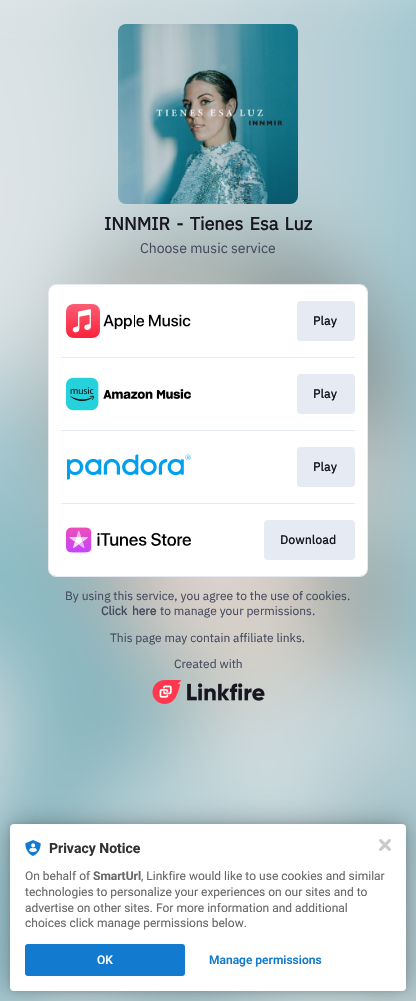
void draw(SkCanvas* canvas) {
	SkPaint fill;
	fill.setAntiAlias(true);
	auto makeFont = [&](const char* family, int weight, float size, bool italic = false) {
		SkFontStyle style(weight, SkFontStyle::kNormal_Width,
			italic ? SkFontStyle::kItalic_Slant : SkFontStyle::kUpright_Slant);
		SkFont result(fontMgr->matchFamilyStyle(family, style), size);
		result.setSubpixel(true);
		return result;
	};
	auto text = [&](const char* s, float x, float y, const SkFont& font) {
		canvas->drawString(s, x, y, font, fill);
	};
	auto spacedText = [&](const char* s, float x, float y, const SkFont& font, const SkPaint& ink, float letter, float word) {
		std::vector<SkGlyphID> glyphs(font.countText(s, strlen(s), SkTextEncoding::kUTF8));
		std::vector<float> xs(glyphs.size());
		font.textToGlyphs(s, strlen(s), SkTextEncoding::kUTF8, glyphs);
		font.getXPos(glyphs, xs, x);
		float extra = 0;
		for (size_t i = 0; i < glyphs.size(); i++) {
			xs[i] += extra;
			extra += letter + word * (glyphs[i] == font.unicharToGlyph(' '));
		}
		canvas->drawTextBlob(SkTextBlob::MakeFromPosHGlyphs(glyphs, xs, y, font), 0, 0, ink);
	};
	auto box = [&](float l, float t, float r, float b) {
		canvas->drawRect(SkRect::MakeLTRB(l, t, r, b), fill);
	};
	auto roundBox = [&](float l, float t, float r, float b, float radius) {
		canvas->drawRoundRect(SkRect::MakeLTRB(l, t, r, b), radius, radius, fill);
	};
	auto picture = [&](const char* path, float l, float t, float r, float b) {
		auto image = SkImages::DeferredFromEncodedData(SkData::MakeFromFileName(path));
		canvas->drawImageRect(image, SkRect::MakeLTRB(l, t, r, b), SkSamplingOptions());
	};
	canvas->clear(0xFFFFFFFF);
	picture("image0.png", 0, 0, 416, 1001);
	picture("image1.png", 118, 24, 298, 204);
	fill.setStyle(SkPaint::kStroke_Style);
	fill.setStrokeWidth(1);
	fill.setColor(0xFFE6EAF2);
	canvas->drawRoundRect(SkRect::MakeLTRB(48.5f, 284.5f, 367.5f, 576.5f), 7.5f, 7.5f, fill);
	fill.setStyle(SkPaint::kFill_Style);
	fill.setColor(0xFFFFFFFF);
	roundBox(49, 285, 367, 576, 7);
	picture("image2.png", 66, 304, 191, 338);
	fill.setColor(0xFFE6EAF2);
	roundBox(297, 301, 355, 341, 4);
	box(61, 357, 355, 358);
	picture("image3.png", 66, 377, 191, 411);
	roundBox(297, 374, 355, 414, 4);
	box(61, 430, 355, 431);
	picture("image4.png", 67, 454, 191, 480);
	roundBox(297, 447, 355, 487, 4);
	box(61, 503, 355, 504);
	picture("image5.png", 66, 527, 191, 553);
	roundBox(264, 520, 355, 560, 4);
	picture("image6.png", 152, 680, 265, 704);
	fill.setColor(0x1F000000);
	fill.setMaskFilter(SkMaskFilter::MakeBlur(kNormal_SkBlurStyle, 2));
	canvas->drawRoundRect(SkRect::MakeLTRB(10, 824, 406, 991), 4, 4, fill);
	fill.setMaskFilter(nullptr);
	fill.setColor(0x4D000000);
	fill.setMaskFilter(SkMaskFilter::MakeBlur(kNormal_SkBlurStyle, 12));
	canvas->drawRoundRect(SkRect::MakeLTRB(10, 824, 406, 991), 4, 4, fill);
	fill.setMaskFilter(nullptr);
	fill.setColor(0xFFFFFFFF);
	roundBox(10, 824, 406, 991, 4);
	picture("image7.png", 379, 839, 391, 851);
	picture("image8.png", 25, 840, 41, 856);
	fill.setColor(0xFF137BCF);
	roundBox(25, 944, 185, 976, 3);
	auto font1 = makeFont("IBM Plex Sans", 700, 18);
	fill.setColor(0xFF181721);
	spacedText("INNMIR - Tienes Esa Luz", 104, 230, font1, fill, 0, 2);
	auto font2 = makeFont("IBM Plex Sans", 400, 14);
	fill.setColor(0xFF454B5F);
	text("Choose music service", 140, 253, font2);
	auto font3 = makeFont("IBM Plex Sans", 700, 12);
	fill.setColor(0xFF181721);
	spacedText("Play", 313, 325, font3, fill, 0.25f, 0);
	spacedText("Play", 313, 398, font3, fill, 0.25f, 0);
	spacedText("Play", 313, 471, font3, fill, 0.25f, 0);
	spacedText("Download", 280, 544, font3, fill, 0.25f, 0);
	auto font4 = makeFont("IBM Plex Sans", 400, 12);
	fill.setColor(0xFF454B5F);
	text("By using this service, you agree to the use of cookies.", 65, 600, font4);
	spacedText("Click here", 101, 615, font3, fill, 0, 2);
	text("to manage your permissions.", 160, 615, font4);
	text("This page may contain affiliate links.", 110, 642, font4);
	text("Created with", 174, 668, font4);
	auto font5 = makeFont("Roboto", 700, 14);
	fill.setColor(0xFF323232);
	text("Privacy Notice", 49, 853, font5);
	auto font6 = makeFont("Roboto", 400, 12);
	fill.setColor(0xFF686868);
	text("On behalf of", 25, 880, font6);
	auto font7 = makeFont("Roboto", 700, 12);
	text("SmartUrl", 93, 880, font7);
	text(", Linkfire would like to use cookies and similar", 141, 880, font6);
	text("technologies to personalize your experiences on our sites and to", 25, 896, font6);
	text("advertise on other sites. For more information and additional", 25, 912, font6);
	text("choices click manage permissions below.", 25, 927, font6);
	auto font8 = makeFont("Roboto", 500, 12);
	fill.setColor(0xFFFFFFFF);
	text("OK", 97, 964, font8);
	auto font9 = makeFont("Roboto", 600, 12);
	fill.setColor(0xFF137BCF);
	text("Manage permissions", 209, 964, font9);
}
